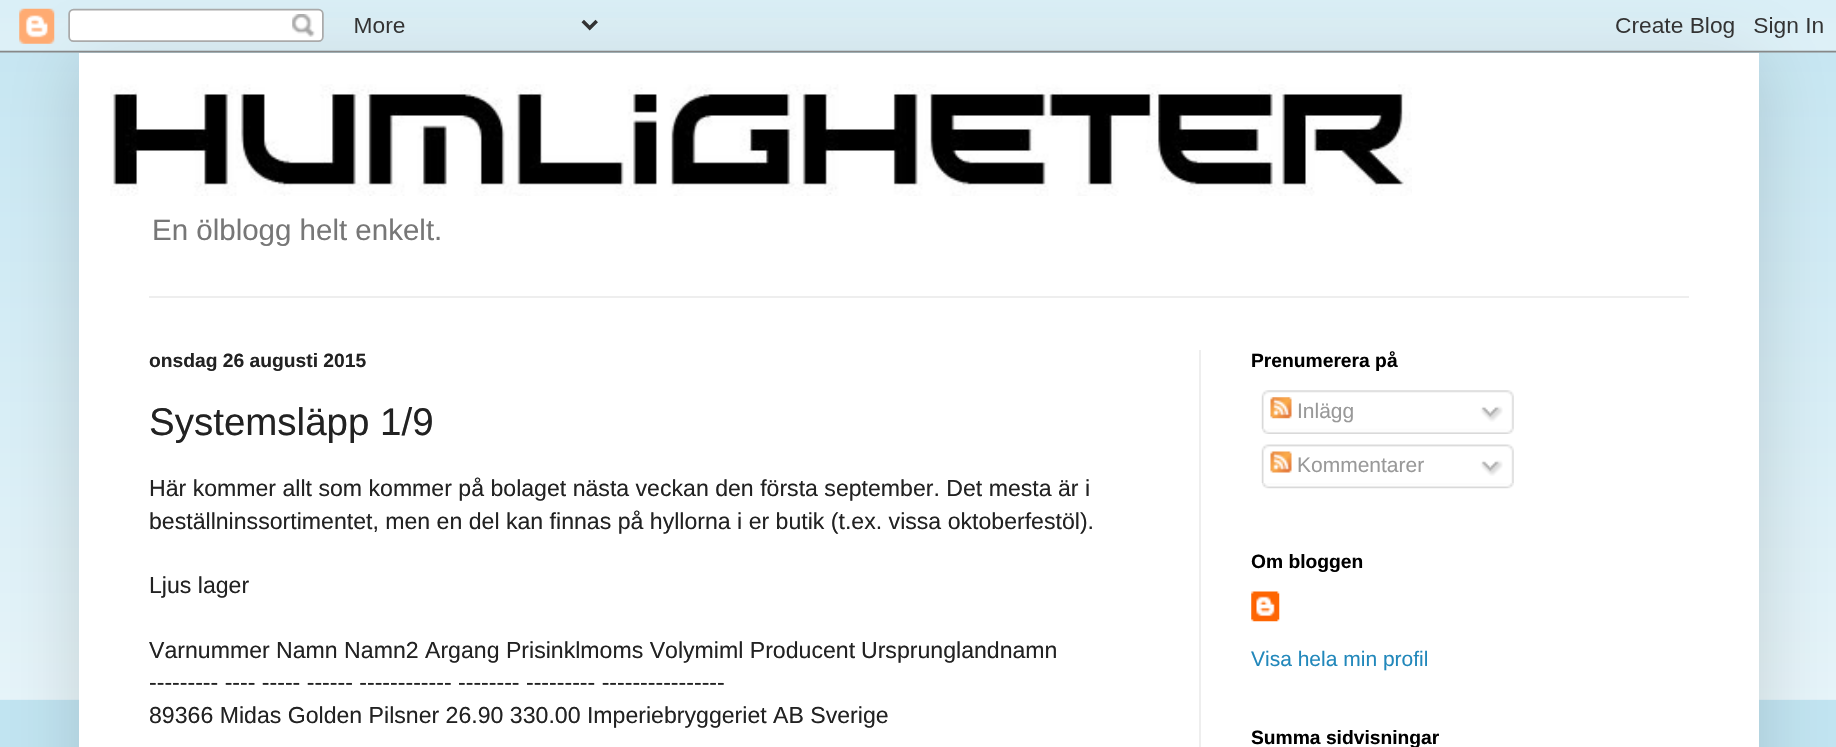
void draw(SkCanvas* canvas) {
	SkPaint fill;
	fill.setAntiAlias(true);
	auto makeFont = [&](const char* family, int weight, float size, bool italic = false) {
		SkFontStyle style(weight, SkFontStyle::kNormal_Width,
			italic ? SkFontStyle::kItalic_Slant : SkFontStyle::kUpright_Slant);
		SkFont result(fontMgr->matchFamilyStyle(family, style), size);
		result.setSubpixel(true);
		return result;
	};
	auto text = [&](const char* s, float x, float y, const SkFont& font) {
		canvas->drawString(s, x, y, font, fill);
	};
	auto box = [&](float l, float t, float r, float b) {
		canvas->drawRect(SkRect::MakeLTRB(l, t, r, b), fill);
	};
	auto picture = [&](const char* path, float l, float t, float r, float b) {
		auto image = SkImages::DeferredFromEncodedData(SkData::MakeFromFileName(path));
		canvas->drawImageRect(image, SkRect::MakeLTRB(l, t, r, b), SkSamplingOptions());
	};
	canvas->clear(0xFFC2E5F2);
	picture("image1.png", 0, 18, 1836, 700);
	fill.setColor(0x26000000);
	fill.setMaskFilter(SkMaskFilter::MakeBlur(kNormal_SkBlurStyle, 35));
	canvas->drawRect(SkRect::MakeLTRB(79, 53, 1759, 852), fill);
	fill.setMaskFilter(nullptr);
	picture("image0.png", 0, 0, 1836, 53);
	fill.setColor(0xFFFFFFFF);
	box(79, 53, 1759, 747);
	picture("image2.png", 110, 84, 1412, 196);
	fill.setColor(0xFFEEEEEE);
	box(149, 296, 1689, 298);
	box(1199, 350, 1201, 747);
	picture("image3.png", 1261, 390, 1514, 429);
	picture("image4.png", 1270, 397, 1292, 419);
	picture("image5.png", 1480, 406, 1503, 422);
	picture("image6.png", 1262, 428, 1514, 434);
	picture("image7.png", 1261, 444, 1514, 483);
	picture("image8.png", 1270, 451, 1292, 473);
	picture("image9.png", 1480, 460, 1503, 476);
	picture("image10.png", 1262, 483, 1514, 489);
	picture("image11.png", 1251, 591, 1280, 622);
	auto font1 = makeFont("Liberation Sans", 400, 29.5f);
	fill.setColor(0xFF777777);
	text("En ölblogg helt enkelt.", 152, 240, font1);
	auto font2 = makeFont("Liberation Sans", 700, 19.25f);
	fill.setColor(0xFF222222);
	text("onsdag 26 augusti 2015", 149, 367, font2);
	auto font3 = makeFont("Liberation Sans", 400, 38.5f);
	text("Systemsläpp 1/9", 149, 435, font3);
	auto font4 = makeFont("Liberation Sans", 400, 23.1f);
	text("Här kommer allt som kommer på bolaget nästa veckan den första september. Det mesta är i", 149, 496, font4);
	text("beställninssortimentet, men en del kan finnas på hyllorna i er butik (t.ex. vissa oktoberfestöl).", 149, 529, font4);
	text("Ljus lager", 149, 593, font4);
	text("Varnummer Namn Namn2 Argang Prisinklmoms Volymiml Producent", 149, 658, font4);
	text("Ursprunglandnamn", 861, 658, font4);
	text("--------- ---- ----- ------ ------------ -------- --------- ----------------", 149, 690, font4);
	text("89366 Midas Golden Pilsner 26.90 330.00 Imperiebryggeriet AB Sverige", 149, 723, font4);
	fill.setColor(0xFF000000);
	text("Prenumerera på", 1251, 367, font2);
	auto font5 = makeFont("Liberation Sans", 400, 21);
	fill.setColor(0xFF999999);
	text("Inlägg", 1297, 418, font5);
	text("Kommentarer", 1297, 472, font5);
	fill.setColor(0xFF000000);
	text("Om bloggen", 1251, 568, font2);
	fill.setColor(0xFF2288BB);
	text("Visa hela min profil", 1251, 666, font5);
	fill.setColor(0xFF000000);
	text("Summa sidvisningar", 1251, 744, font2);
}
